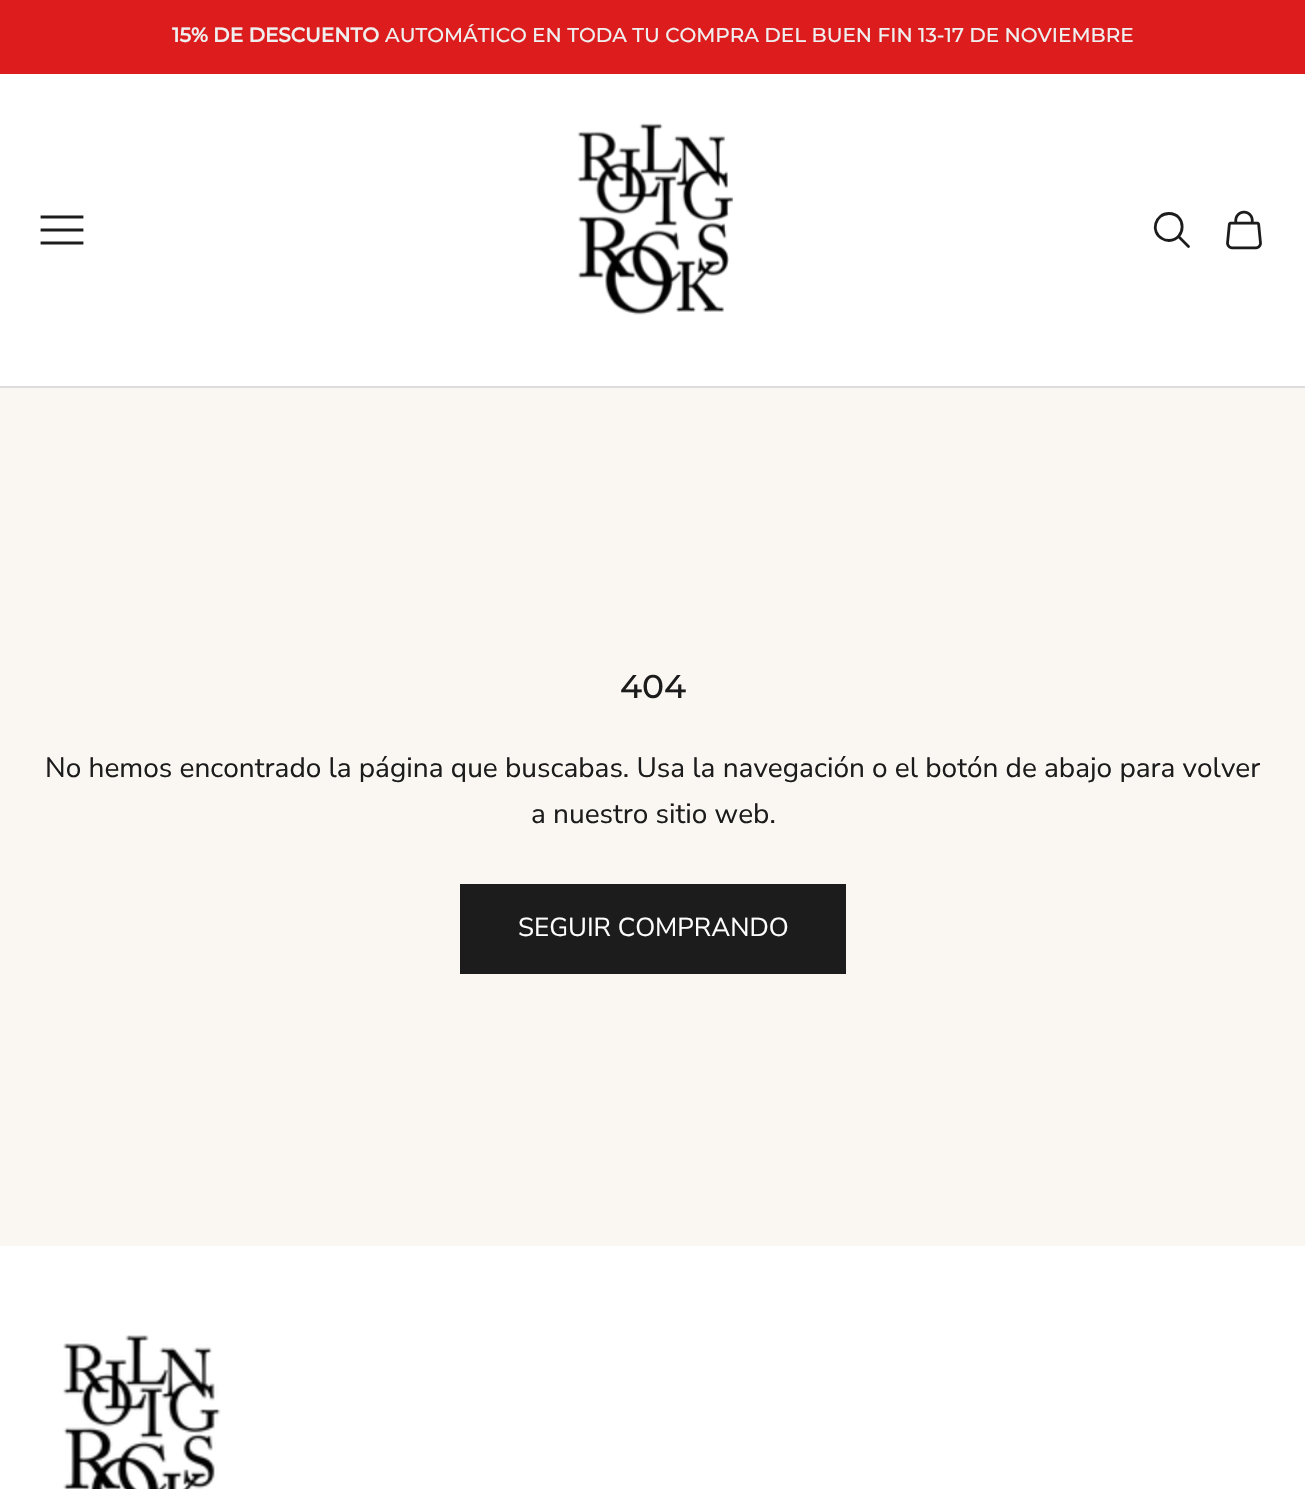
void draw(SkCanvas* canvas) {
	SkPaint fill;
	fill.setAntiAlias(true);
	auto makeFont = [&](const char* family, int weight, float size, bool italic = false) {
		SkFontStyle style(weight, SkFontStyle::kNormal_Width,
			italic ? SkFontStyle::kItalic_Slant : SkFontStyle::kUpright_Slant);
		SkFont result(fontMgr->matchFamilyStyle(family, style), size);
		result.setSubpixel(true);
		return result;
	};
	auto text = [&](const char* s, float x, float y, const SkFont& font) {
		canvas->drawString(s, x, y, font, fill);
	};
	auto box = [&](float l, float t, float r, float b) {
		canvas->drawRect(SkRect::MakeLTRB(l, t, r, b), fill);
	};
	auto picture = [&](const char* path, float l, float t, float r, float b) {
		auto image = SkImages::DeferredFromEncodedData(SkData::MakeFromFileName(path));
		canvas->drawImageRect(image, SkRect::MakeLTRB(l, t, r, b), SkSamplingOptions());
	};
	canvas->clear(0xFFFAF7F2);
	fill.setColor(0xFFDD1D1D);
	box(0, 0, 1305, 74);
	fill.setColor(0xFFFFFFFF);
	box(0, 74, 1305, 386);
	fill.setColor(0xFFDDDDDD);
	box(0, 386, 1305, 388);
	fill.setStyle(SkPaint::kStroke_Style);
	fill.setStrokeWidth(2.8f);
	fill.setStrokeCap(SkPaint::kSquare_Cap);
	fill.setColor(0xFF1C1C1C);
	canvas->drawPath(SkPathBuilder().moveTo(42, 243).lineTo(82, 243).moveTo(42, 230).lineTo(82, 230).moveTo(42, 217).lineTo(82, 217).detach(), fill);
	picture("image0.png", 577, 123, 734, 315);
	fill.setStrokeCap(SkPaint::kButt_Cap);
	canvas->drawPath(SkPathBuilder().moveTo(1169, 213.5f).cubicTo(1155, 213.5f, 1150, 232, 1162, 238.5f).cubicTo(1164, 240, 1166.5f, 240.5f, 1169, 240.5f).cubicTo(1186.5f, 239.5f, 1186.5f, 213.5f, 1169, 213.5f).close().detach(), fill);
	fill.setStrokeCap(SkPaint::kRound_Cap);
	canvas->drawPath(SkPathBuilder().moveTo(1179, 237).lineTo(1188.5f, 246.5f).detach(), fill);
	picture("image1.png", 1226, 210, 1262, 250);
	fill.setStyle(SkPaint::kFill_Style);
	canvas->drawRect(SkRect::MakeLTRB(461, 885, 845, 973), fill);
	fill.setStyle(SkPaint::kStroke_Style);
	fill.setStrokeWidth(2);
	fill.setStrokeCap(SkPaint::kButt_Cap);
	canvas->drawRect(SkRect::MakeLTRB(461, 885, 845, 973), fill);
	fill.setStyle(SkPaint::kFill_Style);
	fill.setColor(0xFFFFFFFF);
	box(0, 1246, 1305, 1489);
	picture("image2.png", 63, 1335, 221, 1489);
	auto font1 = makeFont("Montserrat", 700, 20);
	fill.setColor(0xFFEFEFEF);
	text("15% DE DESCUENTO", 172, 42, font1);
	auto font2 = makeFont("Montserrat", 500, 20);
	text("AUTOMÁTICO EN TODA TU COMPRA DEL BUEN FIN 13-17 DE NOVIEMBRE", 385, 42, font2);
	auto font3 = makeFont("Montserrat", 500, 33);
	fill.setColor(0xFF1C1C1C);
	text("404", 620, 698, font3);
	auto font4 = makeFont("Nunito Sans", 400, 28);
	text("No hemos encontrado la página que buscabas. Usa la navegación o el botón de abajo para volver", 45, 777, font4);
	text("a nuestro sitio web.", 531, 823, font4);
	auto font5 = makeFont("Nunito Sans", 400, 26);
	fill.setColor(0xFFFFFFFF);
	text("SEGUIR COMPRANDO", 518, 936, font5);
}
